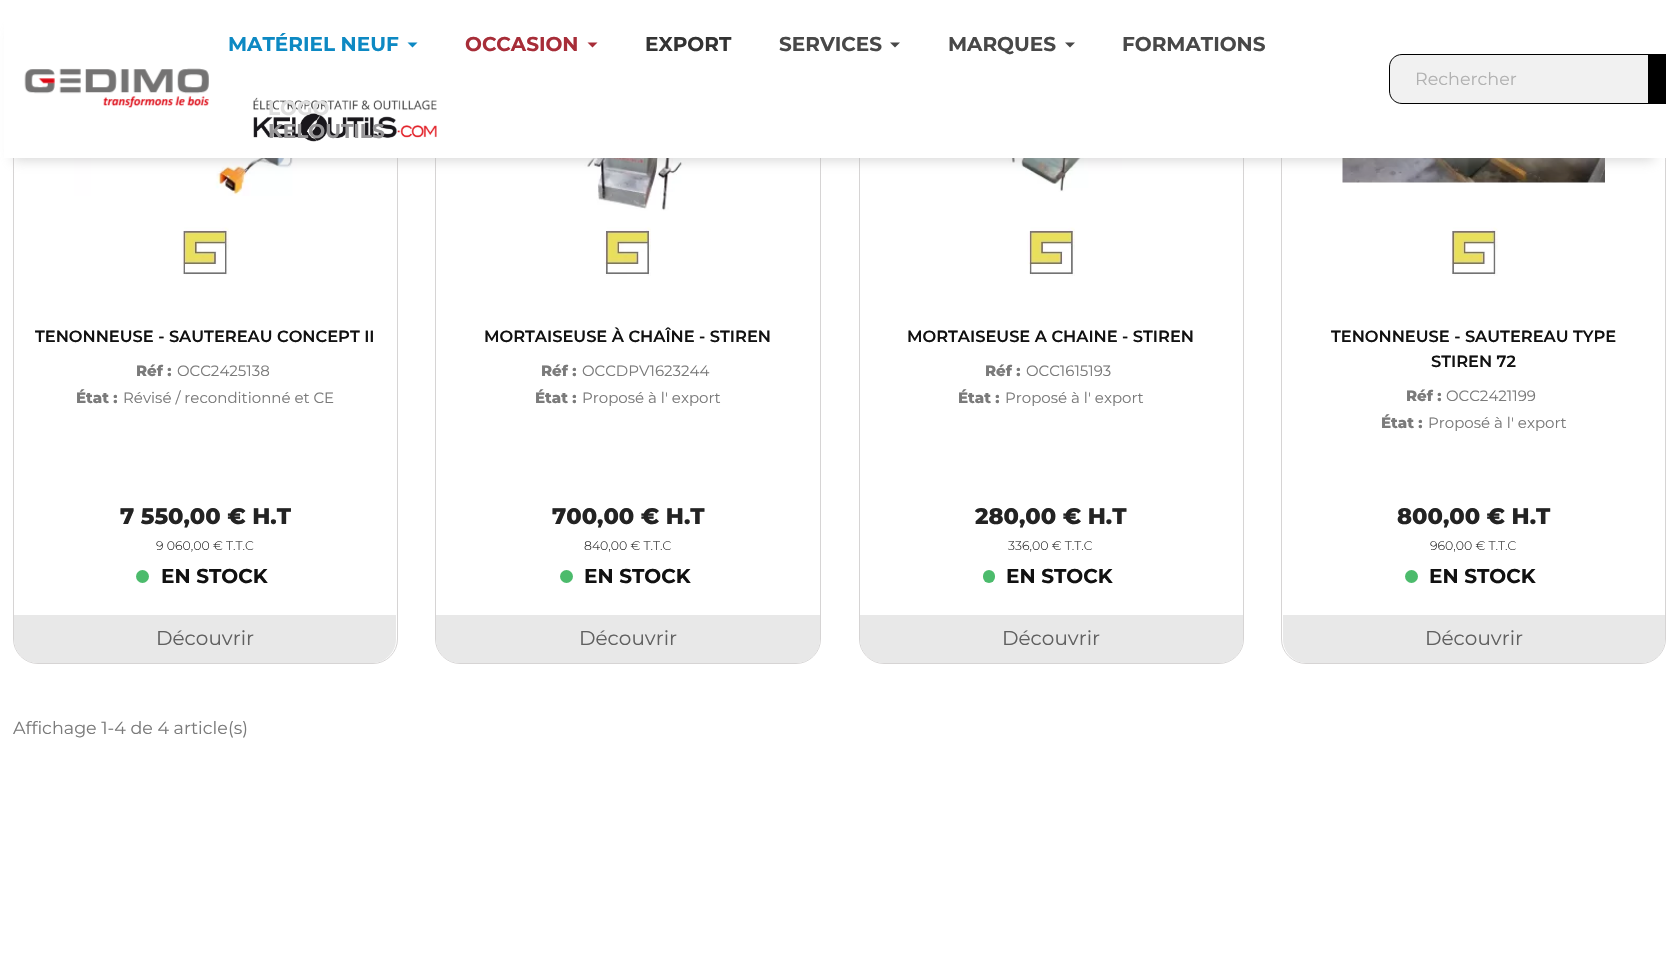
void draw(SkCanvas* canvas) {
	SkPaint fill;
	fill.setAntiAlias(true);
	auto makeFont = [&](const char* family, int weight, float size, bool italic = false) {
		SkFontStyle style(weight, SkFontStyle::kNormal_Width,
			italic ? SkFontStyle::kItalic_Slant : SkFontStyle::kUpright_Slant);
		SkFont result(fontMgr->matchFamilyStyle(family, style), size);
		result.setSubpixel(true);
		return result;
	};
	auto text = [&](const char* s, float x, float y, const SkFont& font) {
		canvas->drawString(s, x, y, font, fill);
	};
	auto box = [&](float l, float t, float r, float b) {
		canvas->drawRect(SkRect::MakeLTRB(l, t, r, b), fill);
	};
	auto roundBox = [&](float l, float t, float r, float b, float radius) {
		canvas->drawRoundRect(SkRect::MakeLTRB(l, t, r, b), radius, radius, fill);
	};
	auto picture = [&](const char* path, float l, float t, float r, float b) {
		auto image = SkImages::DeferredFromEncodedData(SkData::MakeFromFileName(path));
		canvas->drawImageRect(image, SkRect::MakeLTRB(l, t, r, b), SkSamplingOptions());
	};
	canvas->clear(0xFFFFFFFF);
	fill.setStyle(SkPaint::kStroke_Style);
	fill.setStrokeWidth(1);
	fill.setColor(0xFFD6D4D4);
	canvas->drawRoundRect(SkRect::MakeLTRB(13.5f, -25.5f, 397.5f, 663.5f), 24.5f, 24.5f, fill);
	picture("image2.png", 74, 158, 335, 196);
	canvas->drawRoundRect(SkRect::MakeLTRB(435.5f, -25.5f, 820.5f, 663.5f), 24.5f, 24.5f, fill);
	picture("image4.png", 542, 158, 715, 211);
	canvas->drawRoundRect(SkRect::MakeLTRB(859.5f, -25.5f, 1243.5f, 663.5f), 24.5f, 24.5f, fill);
	picture("image6.png", 976, 158, 1125, 192);
	canvas->drawRoundRect(SkRect::MakeLTRB(1281.5f, -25.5f, 1665.5f, 663.5f), 24.5f, 24.5f, fill);
	picture("image8.png", 1342, 158, 1605, 183);
	fill.setStyle(SkPaint::kFill_Style);
	fill.setColor(0x80AAAAAA);
	fill.setMaskFilter(SkMaskFilter::MakeBlur(kNormal_SkBlurStyle, 6));
	canvas->drawRect(SkRect::MakeLTRB(13, 28, 1654, 160), fill);
	fill.setMaskFilter(nullptr);
	fill.setColor(0xFFFFFFFF);
	box(4, 0, 1666, 158);
	picture("image0.png", 24, 68, 209, 108);
	fill.setColor(0xFF0D89C3);
	canvas->drawPath(SkPathBuilder().moveTo(407.5f, 42.5f).lineTo(417.5f, 42.5f).lineTo(412.5f, 47.5f).close().detach(), fill);
	fill.setColor(0xFFA72D38);
	canvas->drawPath(SkPathBuilder().moveTo(587.5f, 42.5f).lineTo(597.5f, 42.5f).lineTo(592.5f, 47.5f).close().detach(), fill);
	fill.setColor(0xFF484848);
	canvas->drawPath(SkPathBuilder().moveTo(890, 42.5f).lineTo(900, 42.5f).lineTo(895, 47.5f).close().detach(), fill);
	canvas->drawPath(SkPathBuilder().moveTo(1065, 42.5f).lineTo(1075, 42.5f).lineTo(1070, 47.5f).close().detach(), fill);
	picture("image1.png", 253, 97, 437, 142);
	fill.setColor(0xFFF1F1F1);
	canvas->drawPath(SkPathBuilder().moveTo(1402, 54.5f).lineTo(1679.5f, 54.5f).lineTo(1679.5f, 103.5f).lineTo(1402, 103.5f).cubicTo(1395, 103.5f, 1389.5f, 98, 1389.5f, 91).lineTo(1389.5f, 67).cubicTo(1389.5f, 60, 1395, 54.5f, 1402, 54.5f).close().detach(), fill);
	fill.setStyle(SkPaint::kStroke_Style);
	fill.setColor(0xFF000000);
	canvas->drawPath(SkPathBuilder().moveTo(1402, 54.5f).lineTo(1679.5f, 54.5f).lineTo(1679.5f, 103.5f).lineTo(1402, 103.5f).cubicTo(1395, 103.5f, 1389.5f, 98, 1389.5f, 91).lineTo(1389.5f, 67).cubicTo(1389.5f, 60, 1395, 54.5f, 1402, 54.5f).close().detach(), fill);
	fill.setStyle(SkPaint::kFill_Style);
	box(1648, 55, 1666, 103);
	picture("image3.png", 181, 227, 229, 275);
	fill.setColor(0xFF4CBB6C);
	canvas->drawCircle(142.5f, 576.5f, 6.5f, fill);
	fill.setColor(0xFFE8E8E8);
	canvas->drawPath(SkPathBuilder().moveTo(14, 615).lineTo(396, 615).lineTo(396, 639).cubicTo(396, 652.5f, 385.5f, 663, 372, 663).lineTo(38, 663).cubicTo(24.5f, 663, 14, 652.5f, 14, 639).close().detach(), fill);
	picture("image5.png", 603, 227, 651, 276);
	fill.setColor(0xFF4CBB6C);
	canvas->drawCircle(566.5f, 576.5f, 6.5f, fill);
	fill.setColor(0xFFE8E8E8);
	canvas->drawPath(SkPathBuilder().moveTo(436, 615).lineTo(820, 615).lineTo(820, 639).cubicTo(820, 652.5f, 809.5f, 663, 796, 663).lineTo(460, 663).cubicTo(446.5f, 663, 436, 652.5f, 436, 639).close().detach(), fill);
	picture("image7.png", 1027, 227, 1075, 276);
	fill.setColor(0xFF4CBB6C);
	roundBox(983, 570, 995, 583, 6);
	fill.setColor(0xFFE8E8E8);
	canvas->drawPath(SkPathBuilder().moveTo(860, 615).lineTo(1243, 615).lineTo(1243, 639).cubicTo(1243, 652.5f, 1232.5f, 663, 1219, 663).lineTo(884, 663).cubicTo(870.5f, 663, 860, 652.5f, 860, 639).close().detach(), fill);
	picture("image9.png", 1450, 227, 1498, 276);
	fill.setColor(0xFF4CBB6C);
	canvas->drawCircle(1411.5f, 576.5f, 6.5f, fill);
	fill.setColor(0xFFE8E8E8);
	canvas->drawPath(SkPathBuilder().moveTo(1283, 615).lineTo(1665, 615).lineTo(1665, 639).cubicTo(1665, 652.5f, 1654.5f, 663, 1641, 663).lineTo(1307, 663).cubicTo(1293.5f, 663, 1283, 652.5f, 1283, 639).close().detach(), fill);
	auto font1 = makeFont("Montserrat", 700, 20);
	fill.setColor(0xFF0D89C3);
	text("MATÉRIEL NEUF", 228, 51, font1);
	fill.setColor(0xFFA72D38);
	text("OCCASION", 465, 51, font1);
	fill.setColor(0xFF333333);
	text("EXPORT", 645, 51, font1);
	fill.setColor(0xFF484848);
	text("SERVICES", 779, 51, font1);
	text("MARQUES", 948, 51, font1);
	text("FORMATIONS", 1122, 51, font1);
	fill.setColor(0xFFDFDFDF);
	text("LOGO", 268, 115, font1);
	fill.setColor(0xFF969597);
	text("KELOUTILS", 268, 138, font1);
	auto font2 = makeFont("Montserrat", 400, 17.5f);
	fill.setColor(0xFFB1B1B1);
	text("Rechercher", 1415, 85, font2);
	auto font3 = makeFont("Montserrat", 600, 16.25f);
	fill.setColor(0xFF111111);
	text("TENONNEUSE - SAUTEREAU CONCEPT II", 35, 342, font3);
	auto font4 = makeFont("Montserrat", 800, 15);
	fill.setColor(0xFF7A7A7A);
	text("Réf :", 136, 376, font4);
	auto font5 = makeFont("Montserrat", 400, 15);
	text("OCC2425138", 177, 376, font5);
	text("État :", 76, 403, font4);
	text("Révisé / reconditionné et CE", 123, 403, font5);
	auto font6 = makeFont("Montserrat", 800, 22.5f);
	fill.setColor(0xFF232323);
	text("7 550,00 € H.T", 120, 524, font6);
	auto font7 = makeFont("Montserrat", 300, 12.5f);
	text("9 060,00 € T.T.C", 156, 550, font7);
	fill.setColor(0xFF111111);
	text("EN STOCK", 161, 583, font1);
	auto font8 = makeFont("Montserrat", 400, 20);
	fill.setColor(0xFF606060);
	text("Découvrir", 156, 645, font8);
	fill.setColor(0xFF111111);
	text("MORTAISEUSE À CHAÎNE - STIREN", 484, 342, font3);
	fill.setColor(0xFF7A7A7A);
	text("Réf :", 541, 376, font4);
	text("OCCDPV1623244", 582, 376, font5);
	text("État :", 535, 403, font4);
	text("Proposé à l' export", 582, 403, font5);
	fill.setColor(0xFF232323);
	text("700,00 € H.T", 552, 524, font6);
	text("840,00 € T.T.C", 584, 550, font7);
	fill.setColor(0xFF111111);
	text("EN STOCK", 584, 583, font1);
	fill.setColor(0xFF606060);
	text("Découvrir", 579, 645, font8);
	fill.setColor(0xFF111111);
	text("MORTAISEUSE A CHAINE - STIREN", 907, 342, font3);
	fill.setColor(0xFF7A7A7A);
	text("Réf :", 985, 376, font4);
	text("OCC1615193", 1026, 376, font5);
	text("État :", 958, 403, font4);
	text("Proposé à l' export", 1005, 403, font5);
	fill.setColor(0xFF232323);
	text("280,00 € H.T", 975, 524, font6);
	text("336,00 € T.T.C", 1008, 550, font7);
	fill.setColor(0xFF111111);
	text("EN STOCK", 1006, 583, font1);
	fill.setColor(0xFF606060);
	text("Découvrir", 1002, 645, font8);
	fill.setColor(0xFF111111);
	text("TENONNEUSE - SAUTEREAU TYPE", 1331, 342, font3);
	text("STIREN 72", 1431, 367, font3);
	fill.setColor(0xFF7A7A7A);
	text("Réf :", 1406, 401, font4);
	text("OCC2421199", 1446, 401, font5);
	text("État :", 1381, 428, font4);
	text("Proposé à l' export", 1428, 428, font5);
	fill.setColor(0xFF232323);
	text("800,00 € H.T", 1397, 524, font6);
	text("960,00 € T.T.C", 1430, 550, font7);
	fill.setColor(0xFF111111);
	text("EN STOCK", 1429, 583, font1);
	fill.setColor(0xFF606060);
	text("Découvrir", 1425, 645, font8);
	fill.setColor(0xFF7A7A7A);
	text("Affichage 1-4 de 4 article(s)", 13, 734, font2);
}
